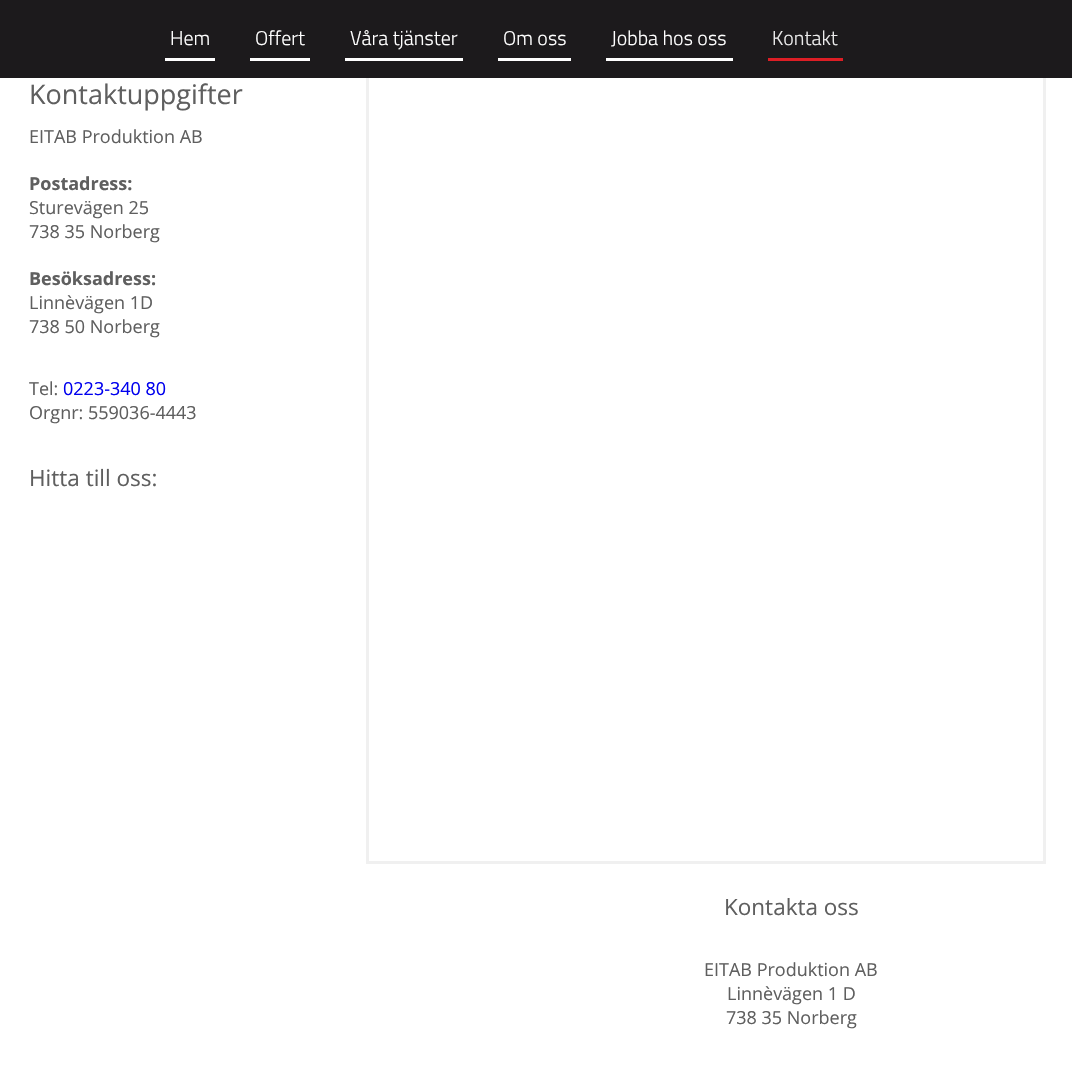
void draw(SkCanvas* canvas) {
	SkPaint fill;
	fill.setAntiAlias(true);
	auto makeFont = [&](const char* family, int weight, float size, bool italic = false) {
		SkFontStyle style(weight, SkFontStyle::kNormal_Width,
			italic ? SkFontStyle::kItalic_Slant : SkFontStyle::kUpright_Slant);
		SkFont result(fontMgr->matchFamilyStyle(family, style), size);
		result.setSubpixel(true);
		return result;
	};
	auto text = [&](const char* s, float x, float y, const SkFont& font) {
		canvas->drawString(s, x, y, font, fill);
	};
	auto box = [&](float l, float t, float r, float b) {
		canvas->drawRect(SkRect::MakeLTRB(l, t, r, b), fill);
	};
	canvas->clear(0xFFFFFFFF);
	fill.setStyle(SkPaint::kStroke_Style);
	fill.setStrokeWidth(3);
	fill.setColor(0xFFF0F0F0);
	canvas->drawRect(SkRect::MakeLTRB(367.5f, 74.5f, 1044.5f, 862.5f), fill);
	fill.setStyle(SkPaint::kFill_Style);
	fill.setColor(0xFF1C1A1C);
	box(0, 0, 1072, 78);
	fill.setColor(0xFFFFFFFF);
	box(165, 58, 215, 61);
	box(250, 58, 310, 61);
	box(345, 58, 463, 61);
	box(498, 58, 571, 61);
	box(606, 58, 733, 61);
	fill.setColor(0xFFDC1E25);
	box(768, 58, 843, 61);
	auto font1 = makeFont("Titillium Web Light", 300, 20);
	fill.setColor(0xFFFFFFFF);
	text("Hem", 170, 45, font1);
	text("Offert", 255, 45, font1);
	text("Våra tjänster", 350, 45, font1);
	text("Om oss", 503, 45, font1);
	text("Jobba hos oss", 611, 45, font1);
	fill.setColor(0xFFEBEBEB);
	text("Kontakt", 772, 45, font1);
	auto font2 = makeFont("Open Sans", 400, 27);
	fill.setColor(0xFF5F5F5F);
	text("Kontaktuppgifter", 29, 104, font2);
	auto font3 = makeFont("Open Sans", 400, 18);
	text("EITAB Produktion AB", 29, 143, font3);
	auto font4 = makeFont("Open Sans", 700, 18);
	text("Postadress:", 29, 190, font4);
	text("Sturevägen 25", 29, 214, font3);
	text("738 35 Norberg", 29, 238, font3);
	text("Besöksadress:", 29, 285, font4);
	text("Linnèvägen 1D", 29, 309, font3);
	text("738 50 Norberg", 29, 333, font3);
	text("Tel:", 29, 395, font3);
	fill.setColor(0xFF0000EE);
	text("0223-340 80", 63, 395, font3);
	fill.setColor(0xFF5F5F5F);
	text("Orgnr: 559036-4443", 29, 419, font3);
	auto font5 = makeFont("Open Sans", 400, 22.5f);
	text("Hitta till oss:", 29, 486, font5);
	text("Kontakta oss", 724, 915, font5);
	text("EITAB Produktion AB", 704, 976, font3);
	text("Linnèvägen 1 D", 727, 1000, font3);
	text("738 35 Norberg", 726, 1024, font3);
}
